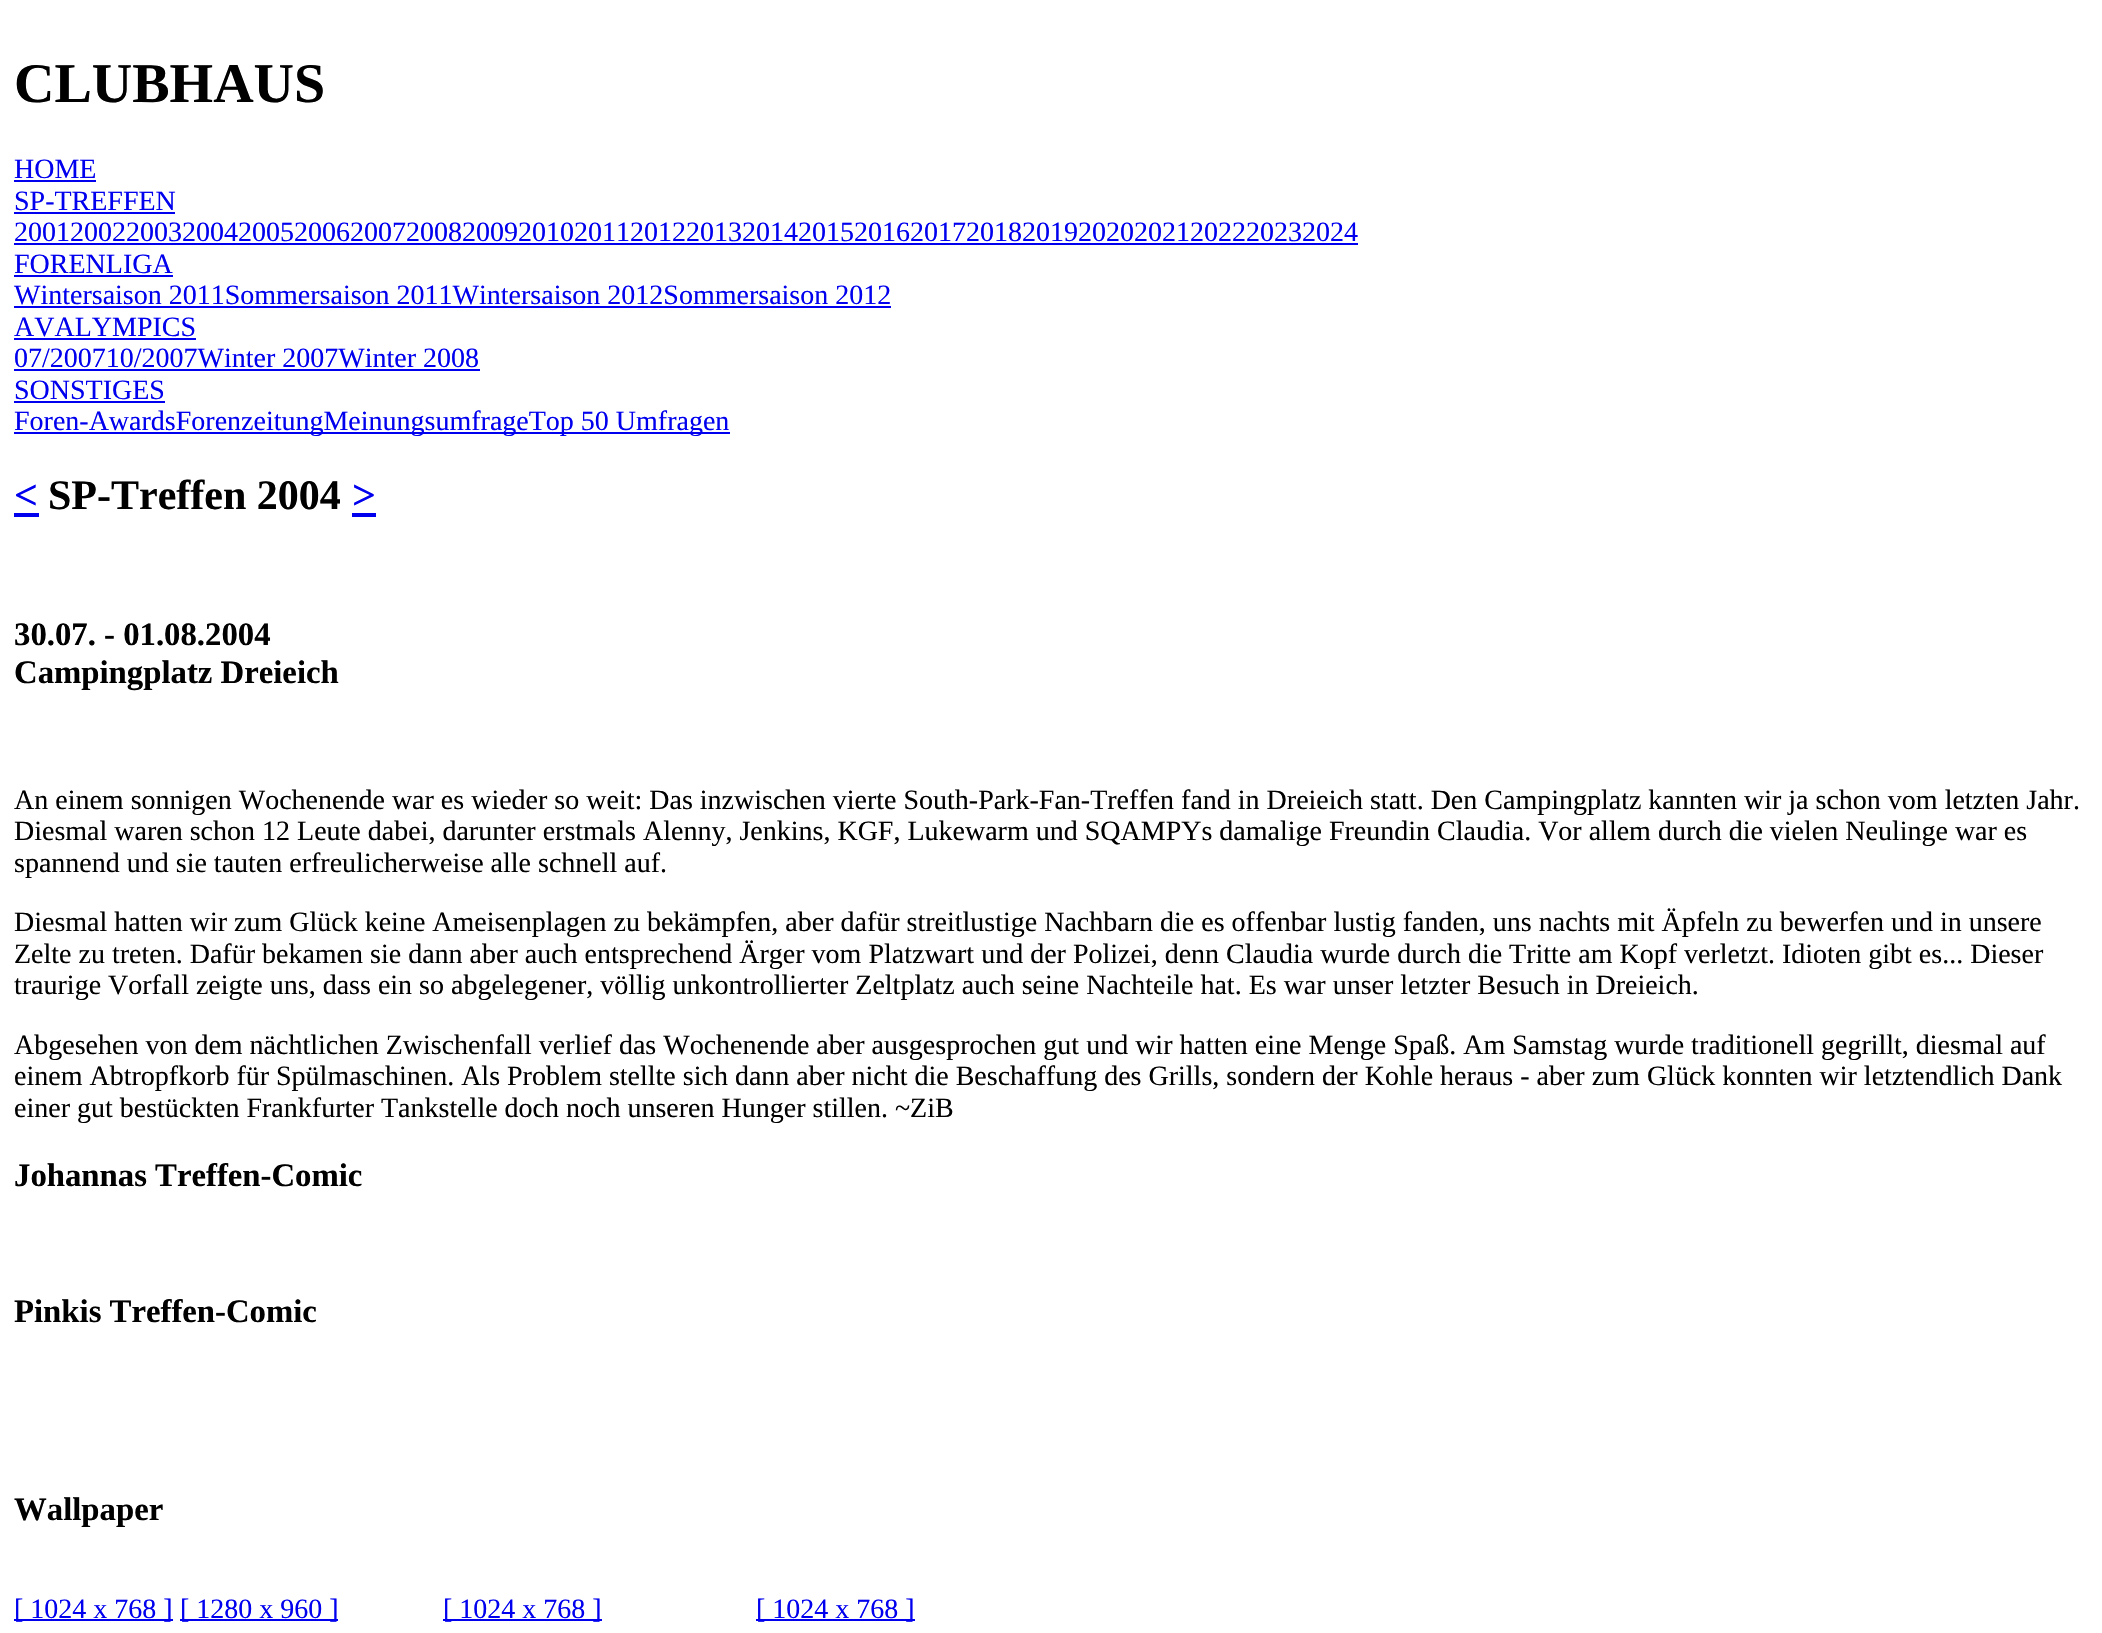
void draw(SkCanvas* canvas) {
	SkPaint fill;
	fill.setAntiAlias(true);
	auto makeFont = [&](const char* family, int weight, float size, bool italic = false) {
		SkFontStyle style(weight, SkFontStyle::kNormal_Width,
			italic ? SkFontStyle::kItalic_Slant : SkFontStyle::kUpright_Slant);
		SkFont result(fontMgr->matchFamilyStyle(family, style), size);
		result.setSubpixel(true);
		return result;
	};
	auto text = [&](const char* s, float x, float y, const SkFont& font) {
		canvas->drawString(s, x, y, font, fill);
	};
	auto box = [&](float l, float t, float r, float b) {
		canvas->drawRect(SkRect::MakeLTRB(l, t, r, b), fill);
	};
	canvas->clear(0xFFFFFFFF);
	fill.setColor(0xFF0000EE);
	box(14, 180, 96, 182);
	box(14, 212, 175, 214);
	box(14, 243, 1358, 245);
	box(14, 275, 173, 277);
	box(14, 306, 891, 308);
	box(14, 338, 196, 340);
	box(14, 369, 480, 371);
	box(14, 401, 165, 403);
	box(14, 432, 730, 434);
	box(14, 513, 39, 517);
	box(352, 513, 376, 517);
	box(14, 1619, 173, 1621);
	box(180, 1619, 338, 1621);
	box(443, 1619, 602, 1621);
	box(756, 1619, 915, 1621);
	auto font1 = makeFont("Liberation Serif", 700, 56);
	fill.setColor(0xFF000000);
	text("CLUBHAUS", 14, 102, font1);
	auto font2 = makeFont("Liberation Serif", 400, 28);
	fill.setColor(0xFF0000EE);
	text("HOME", 14, 178, font2);
	text("SP-TREFFEN", 14, 210, font2);
	text("200120022003200420052006200720082009201020112012201320142015201620172018201920202021202220232024", 14, 241, font2);
	text("FORENLIGA", 14, 273, font2);
	text("Wintersaison 2011Sommersaison 2011Wintersaison 2012Sommersaison 2012", 14, 304, font2);
	text("AVALYMPICS", 14, 336, font2);
	text("07/200710/2007Winter 2007Winter 2008", 14, 367, font2);
	text("SONSTIGES", 14, 399, font2);
	text("Foren-AwardsForenzeitungMeinungsumfrageTop 50 Umfragen", 14, 430, font2);
	auto font3 = makeFont("Liberation Serif", 700, 42);
	text("<", 14, 509, font3);
	fill.setColor(0xFF000000);
	text("SP-Treffen 2004", 48, 509, font3);
	fill.setColor(0xFF0000EE);
	text(">", 352, 509, font3);
	auto font4 = makeFont("Liberation Serif", 700, 32.75f);
	fill.setColor(0xFF000000);
	text("30.07. - 01.08.2004", 14, 645, font4);
	text("Campingplatz Dreieich", 14, 683, font4);
	text("An einem sonnigen Wochenende war es wieder so weit: Das inzwischen vierte South-Park-Fan-Treffen fand in Dreieich statt. Den Campingplatz kannten wir ja schon vom letzten Jahr.", 14, 809, font2);
	text("Diesmal waren schon 12 Leute dabei, darunter erstmals Alenny, Jenkins, KGF, Lukewarm und SQAMPYs damalige Freundin Claudia. Vor allem durch die vielen Neulinge war es", 14, 840, font2);
	text("spannend und sie tauten erfreulicherweise alle schnell auf.", 14, 872, font2);
	text("Diesmal hatten wir zum Glück keine Ameisenplagen zu bekämpfen, aber dafür streitlustige Nachbarn die es offenbar lustig fanden, uns nachts mit Äpfeln zu bewerfen und in unsere", 14, 931, font2);
	text("Zelte zu treten. Dafür bekamen sie dann aber auch entsprechend Ärger vom Platzwart und der Polizei, denn Claudia wurde durch die Tritte am Kopf verletzt. Idioten gibt es... Dieser", 14, 963, font2);
	text("traurige Vorfall zeigte uns, dass ein so abgelegener, völlig unkontrollierter Zeltplatz auch seine Nachteile hat. Es war unser letzter Besuch in Dreieich.", 14, 994, font2);
	text("Abgesehen von dem nächtlichen Zwischenfall verlief das Wochenende aber ausgesprochen gut und wir hatten eine Menge Spaß. Am Samstag wurde traditionell gegrillt, diesmal auf", 14, 1054, font2);
	text("einem Abtropfkorb für Spülmaschinen. Als Problem stellte sich dann aber nicht die Beschaffung des Grills, sondern der Kohle heraus - aber zum Glück konnten wir letztendlich Dank", 14, 1085, font2);
	text("einer gut bestückten Frankfurter Tankstelle doch noch unseren Hunger stillen. ~ZiB", 14, 1117, font2);
	text("Johannas Treffen-Comic", 14, 1186, font4);
	text("Pinkis Treffen-Comic", 14, 1322, font4);
	text("Wallpaper", 14, 1520, font4);
	fill.setColor(0xFF0000EE);
	text("[ 1024 x 768 ]", 14, 1618, font2);
	text("[ 1280 x 960 ]", 180, 1618, font2);
	text("[ 1024 x 768 ]", 443, 1618, font2);
	text("[ 1024 x 768 ]", 756, 1618, font2);
}
